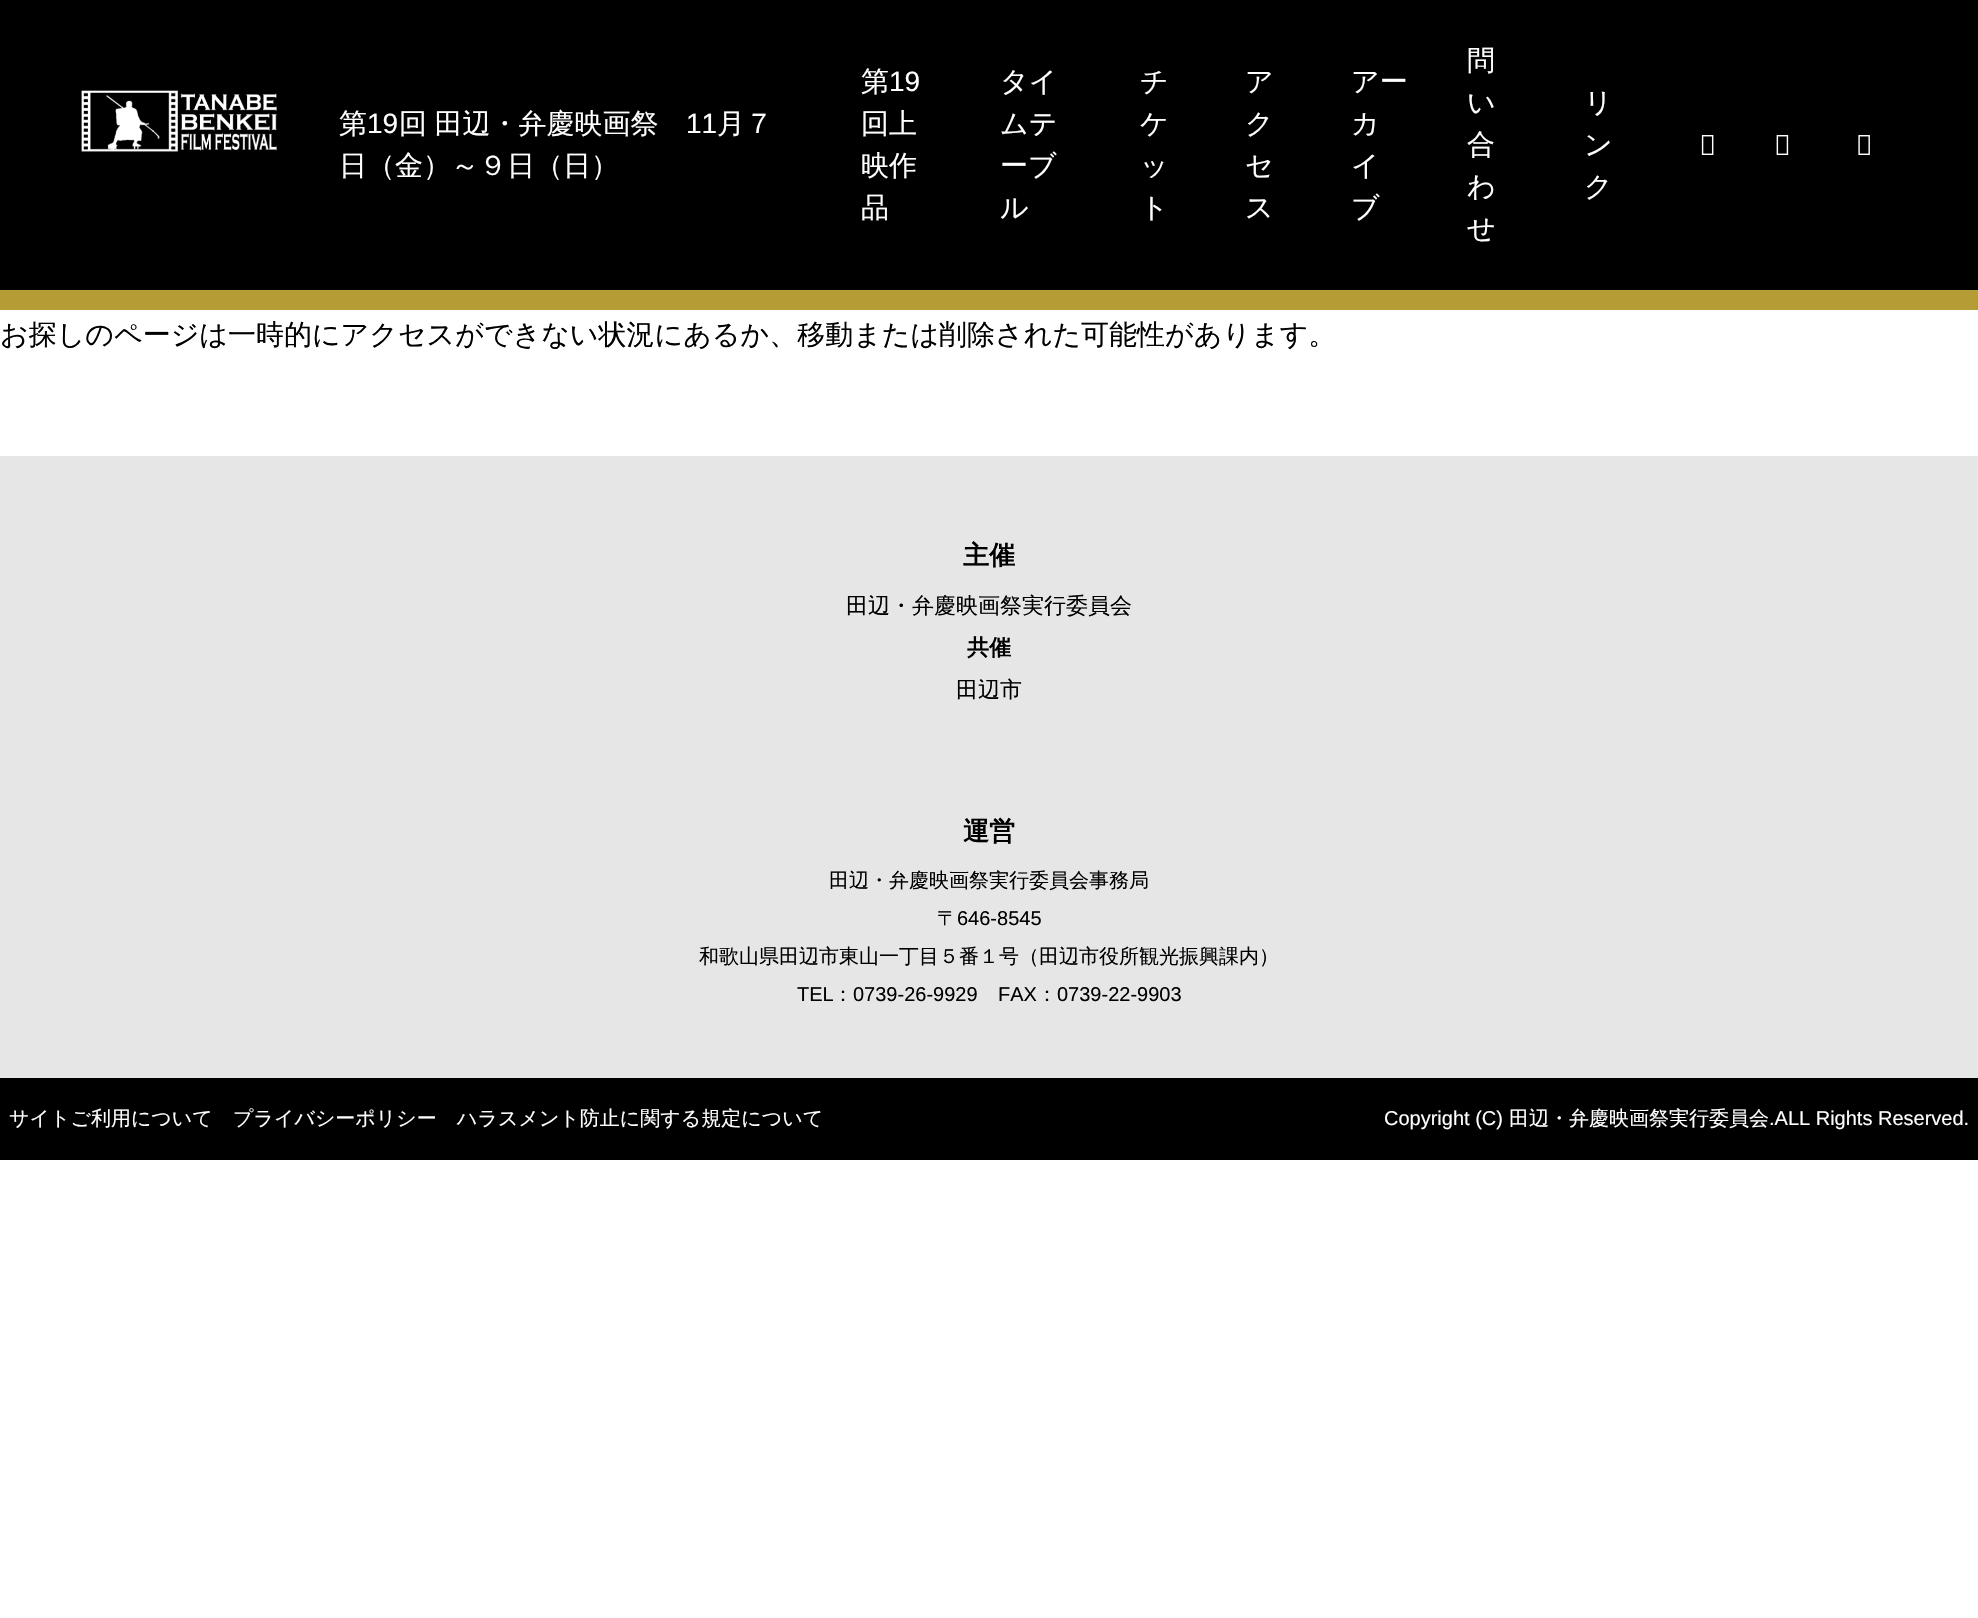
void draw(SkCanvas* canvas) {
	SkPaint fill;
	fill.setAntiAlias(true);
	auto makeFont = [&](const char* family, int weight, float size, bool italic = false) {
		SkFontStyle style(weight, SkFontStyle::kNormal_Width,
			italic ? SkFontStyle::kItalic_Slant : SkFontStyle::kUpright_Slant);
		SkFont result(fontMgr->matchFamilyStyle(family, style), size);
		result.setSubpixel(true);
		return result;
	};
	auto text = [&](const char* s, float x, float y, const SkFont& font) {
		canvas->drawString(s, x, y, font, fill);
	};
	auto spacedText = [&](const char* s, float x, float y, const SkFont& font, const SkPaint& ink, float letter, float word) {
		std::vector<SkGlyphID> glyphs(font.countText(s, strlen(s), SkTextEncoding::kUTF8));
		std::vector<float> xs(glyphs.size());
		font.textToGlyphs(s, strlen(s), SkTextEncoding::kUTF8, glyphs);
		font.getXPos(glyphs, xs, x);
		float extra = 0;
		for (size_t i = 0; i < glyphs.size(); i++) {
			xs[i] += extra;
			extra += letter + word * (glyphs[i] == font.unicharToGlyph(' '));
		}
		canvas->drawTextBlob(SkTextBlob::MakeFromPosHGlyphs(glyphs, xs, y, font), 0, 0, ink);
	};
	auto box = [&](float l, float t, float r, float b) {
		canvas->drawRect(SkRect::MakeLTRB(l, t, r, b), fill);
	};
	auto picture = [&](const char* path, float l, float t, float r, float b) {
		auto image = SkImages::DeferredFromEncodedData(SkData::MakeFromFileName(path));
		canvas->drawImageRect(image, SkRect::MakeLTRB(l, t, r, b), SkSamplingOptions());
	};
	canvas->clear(0xFFFFFFFF);
	fill.setColor(0xFF000000);
	box(0, 0, 1978, 290);
	fill.setColor(0xFFB59C34);
	box(0, 290, 1978, 310);
	picture("image0.png", 81, 90, 277, 152);
	picture("image1.png", 1701, 135, 1714, 155);
	picture("image2.png", 1776, 135, 1789, 155);
	picture("image3.png", 1858, 135, 1870, 155);
	fill.setColor(0xFFE6E6E6);
	box(0, 456, 1978, 1078);
	fill.setColor(0xFF000000);
	box(0, 1078, 1978, 1160);
	auto font1 = makeFont("WenQuanYi Zen Hei", 500, 28);
	fill.setColor(0xFFFFFFFF);
	text("第", 339, 133, font1);
	auto font2 = makeFont("Liberation Sans", 400, 28);
	text("19", 367, 133, font2);
	spacedText("回 田辺・弁慶映画祭", 399, 133, font1, fill, 0, -1);
	text("11", 686, 133, font2);
	text("月７", 717, 133, font1);
	text("日（金）～９日（日）", 339, 175, font1);
	text("第", 861, 91, font1);
	text("19", 889, 91, font2);
	text("回上", 861, 133, font1);
	text("映作", 861, 175, font1);
	text("品", 861, 217, font1);
	text("タイ", 1000, 91, font1);
	text("ムテ", 1000, 133, font1);
	text("ーブ", 1000, 175, font1);
	text("ル", 1000, 217, font1);
	text("チ", 1140, 91, font1);
	text("ケ", 1140, 133, font1);
	text("ッ", 1140, 175, font1);
	text("ト", 1140, 217, font1);
	text("ア", 1245, 91, font1);
	text("ク", 1245, 133, font1);
	text("セ", 1245, 175, font1);
	text("ス", 1245, 217, font1);
	text("アー", 1351, 91, font1);
	text("カ", 1351, 133, font1);
	text("イ", 1351, 175, font1);
	text("ブ", 1351, 217, font1);
	text("問", 1467, 70, font1);
	text("い", 1467, 112, font1);
	text("合", 1467, 154, font1);
	text("わ", 1467, 196, font1);
	text("せ", 1467, 238, font1);
	text("リ", 1584, 112, font1);
	text("ン", 1584, 154, font1);
	text("ク", 1584, 196, font1);
	fill.setColor(0xFF000000);
	text("お探しのページは一時的にアクセスができない状況にあるか、移動または削除された可能性があります。", 0, 344, font1);
	auto font3 = makeFont("WenQuanYi Zen Hei", 700, 26);
	text("主催", 963, 564, font3);
	auto font4 = makeFont("WenQuanYi Zen Hei", 500, 22);
	text("田辺・弁慶映画祭実行委員会", 846, 613, font4);
	auto font5 = makeFont("WenQuanYi Zen Hei", 700, 22);
	text("共催", 967, 655, font5);
	text("田辺市", 956, 697, font4);
	text("運営", 963, 840, font3);
	auto font6 = makeFont("WenQuanYi Zen Hei", 500, 20);
	text("田辺・弁慶映画祭実行委員会事務局", 829, 887, font6);
	text("〒", 937, 925, font6);
	auto font7 = makeFont("Liberation Sans", 400, 20);
	text("646-8545", 957, 925, font7);
	text("和歌山県田辺市東山一丁目５番１号（田辺市役所観光振興課内）", 699, 963, font6);
	text("TEL", 797, 1001, font7);
	text("：", 833, 1001, font6);
	text("0739-26-9929", 853, 1001, font7);
	text("FAX", 998, 1001, font7);
	text("：", 1037, 1001, font6);
	text("0739-22-9903", 1057, 1001, font7);
	fill.setColor(0xFFFFFFFF);
	text("サイトご利用について", 9, 1125, font6);
	text("プライバシーポリシー", 233, 1125, font6);
	text("ハラスメント防止に関する規定について", 457, 1125, font6);
	text("Copyright (C)", 1384, 1125, font7);
	text("田辺・弁慶映画祭実行委員会", 1509, 1125, font6);
	text(".ALL Rights Reserved.", 1769, 1125, font7);
}
